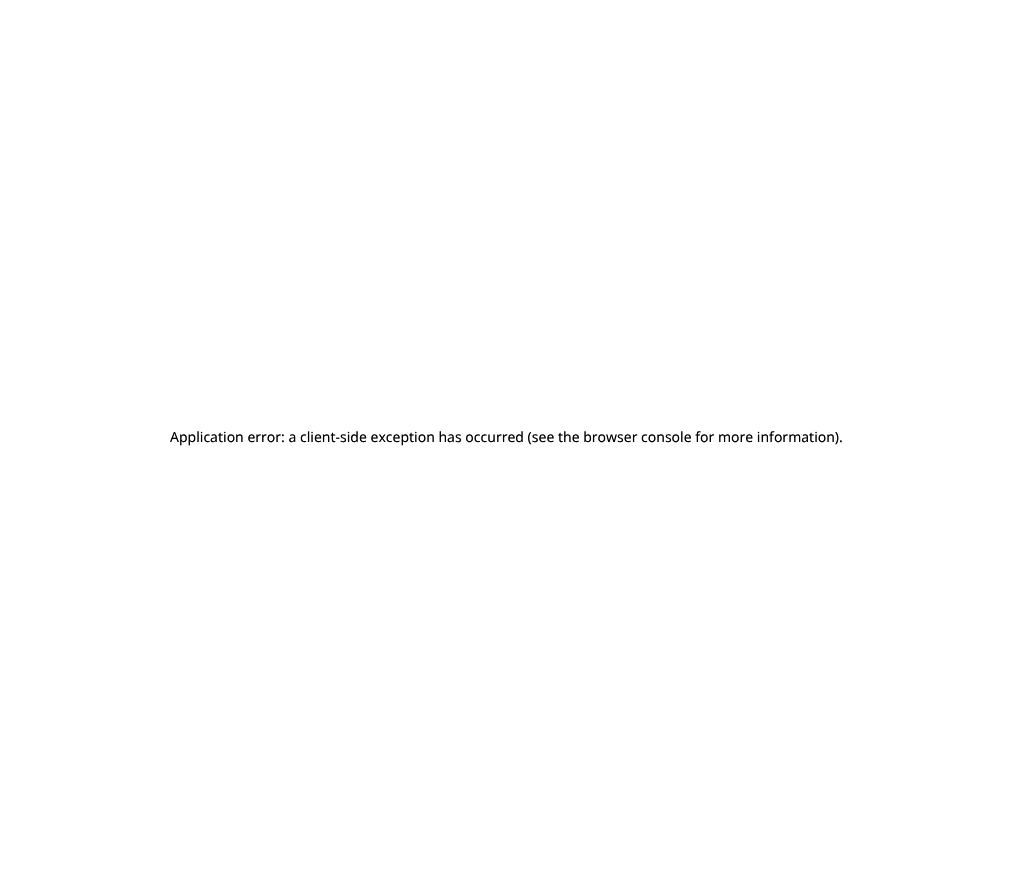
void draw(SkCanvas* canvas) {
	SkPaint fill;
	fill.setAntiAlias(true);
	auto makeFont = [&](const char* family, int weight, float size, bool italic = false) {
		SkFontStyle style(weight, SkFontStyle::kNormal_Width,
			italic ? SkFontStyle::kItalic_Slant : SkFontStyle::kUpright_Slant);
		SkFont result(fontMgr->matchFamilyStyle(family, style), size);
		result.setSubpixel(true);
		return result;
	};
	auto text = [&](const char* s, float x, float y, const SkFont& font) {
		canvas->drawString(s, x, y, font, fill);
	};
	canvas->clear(0xFFFFFFFF);
	auto font1 = makeFont("Noto Sans", 400, 14);
	fill.setColor(0xFF000000);
	text("Application error: a client-side exception has occurred (see the browser console for more information).", 170, 442, font1);
}
